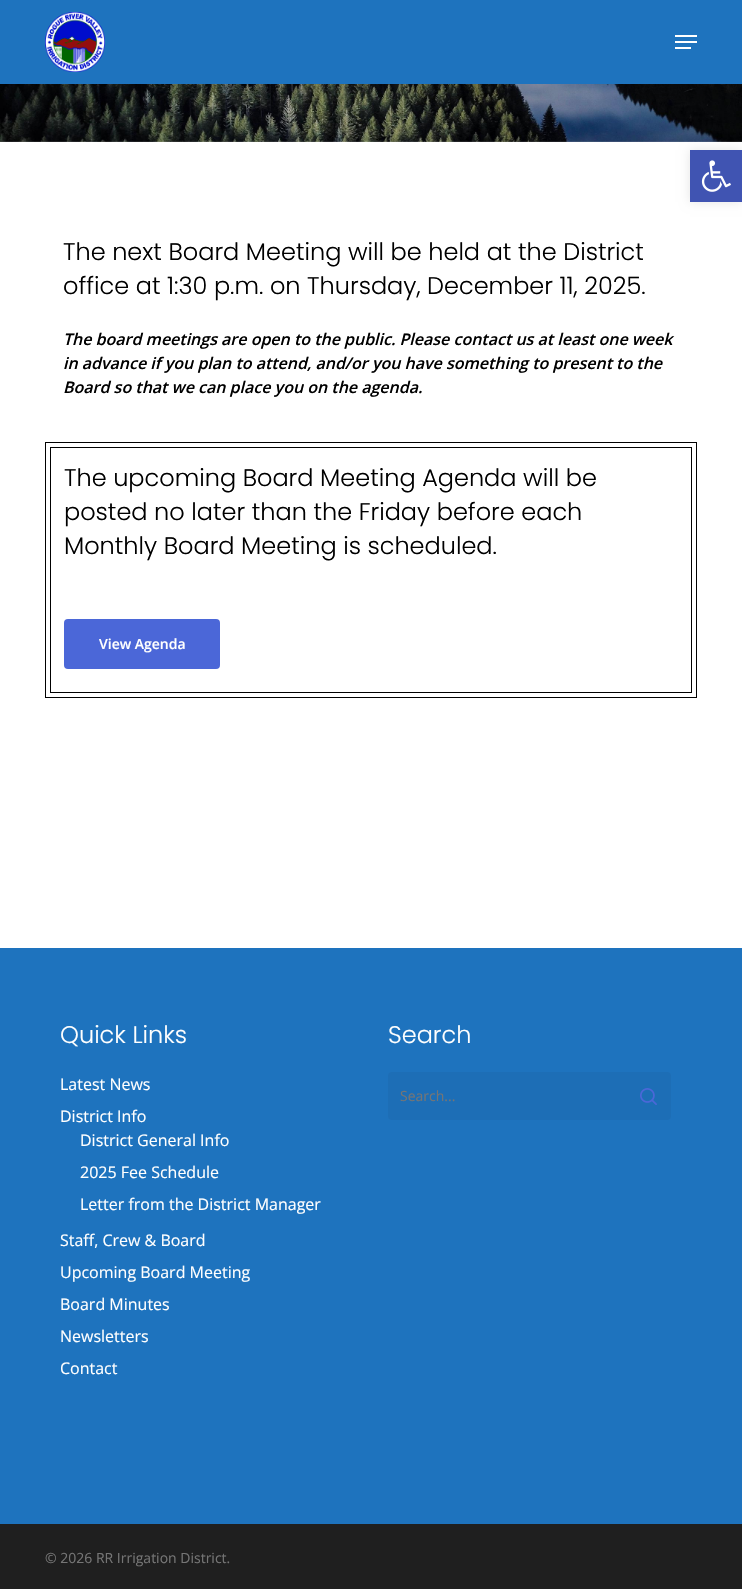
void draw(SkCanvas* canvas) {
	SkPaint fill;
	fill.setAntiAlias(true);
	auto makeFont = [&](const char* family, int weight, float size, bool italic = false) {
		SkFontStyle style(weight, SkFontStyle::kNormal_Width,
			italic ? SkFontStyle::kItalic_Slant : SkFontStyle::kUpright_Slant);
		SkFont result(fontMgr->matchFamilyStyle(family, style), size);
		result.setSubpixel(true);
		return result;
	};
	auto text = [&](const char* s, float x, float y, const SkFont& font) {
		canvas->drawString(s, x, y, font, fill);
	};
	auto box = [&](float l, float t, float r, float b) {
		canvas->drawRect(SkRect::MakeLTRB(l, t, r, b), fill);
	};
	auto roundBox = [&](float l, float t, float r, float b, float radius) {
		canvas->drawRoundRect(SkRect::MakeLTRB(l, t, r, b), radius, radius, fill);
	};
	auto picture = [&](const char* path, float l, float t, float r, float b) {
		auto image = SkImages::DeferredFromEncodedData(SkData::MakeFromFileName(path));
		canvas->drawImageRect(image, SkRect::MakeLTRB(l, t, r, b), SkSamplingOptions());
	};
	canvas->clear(0xFFFFFFFF);
	picture("image2.png", 0, 84, 742, 142);
	fill.setColor(0x1A000000);
	fill.setMaskFilter(SkMaskFilter::MakeBlur(kNormal_SkBlurStyle, 5));
	canvas->drawRect(SkRect::MakeLTRB(690, 150, 742, 202), fill);
	fill.setMaskFilter(nullptr);
	fill.setColor(0x26000000);
	fill.setMaskFilter(SkMaskFilter::MakeBlur(kNormal_SkBlurStyle, 22.5f));
	canvas->drawRect(SkRect::MakeLTRB(0, 3, 742, 87), fill);
	fill.setMaskFilter(nullptr);
	fill.setColor(0xFF4054B2);
	box(690, 150, 742, 202);
	picture("image0.png", 701, 160, 731, 192);
	fill.setColor(0xFF1E73BE);
	box(0, 0, 742, 84);
	picture("image1.png", 45, 12, 105, 72);
	fill.setColor(0xFFFFFFFF);
	box(675, 35, 697, 37);
	box(675, 47, 691, 49);
	box(675, 41, 697, 43);
	fill.setColor(0xFF000000);
	box(45, 442, 697, 443);
	box(50, 447, 692, 448);
	box(696, 442, 697, 698);
	box(45, 697, 697, 698);
	box(45, 442, 46, 698);
	box(691, 447, 692, 693);
	box(50, 692, 692, 693);
	box(50, 447, 51, 693);
	fill.setColor(0xFF4B67D8);
	roundBox(64, 619, 220, 669, 4);
	fill.setColor(0xFF1E73BE);
	box(0, 948, 742, 1524);
	fill.setColor(0xFF1D6EB6);
	roundBox(388, 1072, 671, 1120, 4);
	picture("image3.png", 640, 1088, 657, 1105);
	fill.setColor(0xFF1F1F1F);
	box(0, 1524, 742, 1589);
	auto font1 = makeFont("Poppins", 300, 24);
	fill.setColor(0xFF000000);
	text("The next Board Meeting will be held at the District", 63, 260, font1);
	text("office at 1:30 p.m. on Thursday, December 11, 2025.", 63, 294, font1);
	auto font2 = makeFont("Open Sans", 600, 16, true);
	text("The board meetings are open to the public. Please contact us at least one week", 63, 345, font2);
	text("in advance if you plan to attend, and/or you have something to present to the", 63, 369, font2);
	text("Board so that we can place you on the agenda.", 63, 393, font2);
	text("The upcoming Board Meeting Agenda will be", 64, 486, font1);
	text("posted no later than the Friday before each", 64, 520, font1);
	text("Monthly Board Meeting is scheduled.", 64, 554, font1);
	auto font3 = makeFont("Open Sans", 600, 14);
	fill.setColor(0xFFFFFFFF);
	text("View Agenda", 99, 649, font3);
	text("Quick Links", 60, 1043, font1);
	auto font4 = makeFont("Open Sans", 400, 16);
	text("Latest News", 60, 1090, font4);
	text("District Info", 60, 1122, font4);
	text("District General Info", 80, 1146, font4);
	text("2025 Fee Schedule", 80, 1178, font4);
	text("Letter from the District Manager", 80, 1210, font4);
	text("Staff, Crew & Board", 60, 1246, font4);
	text("Upcoming Board Meeting", 60, 1278, font4);
	text("Board Minutes", 60, 1310, font4);
	text("Newsletters", 60, 1342, font4);
	text("Contact", 60, 1374, font4);
	text("Search", 388, 1043, font1);
	auto font5 = makeFont("Open Sans", 400, 14);
	fill.setColor(0xFF757575);
	text("Search...", 400, 1101, font5);
	text("© 2026 RR Irrigation District.", 45, 1563, font5);
}
